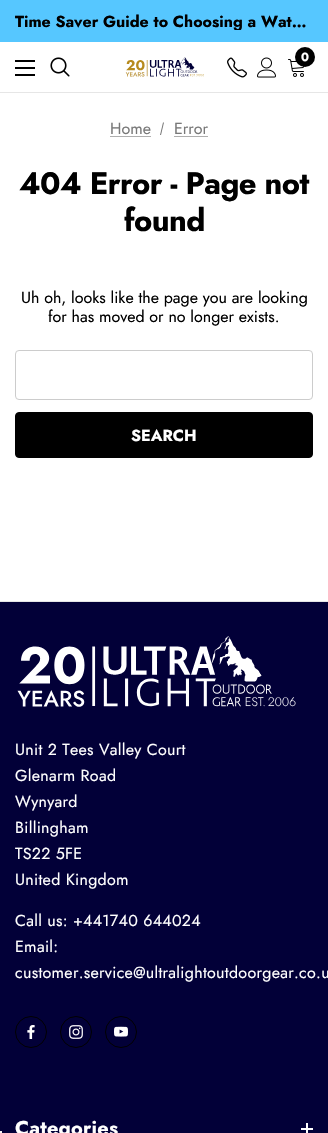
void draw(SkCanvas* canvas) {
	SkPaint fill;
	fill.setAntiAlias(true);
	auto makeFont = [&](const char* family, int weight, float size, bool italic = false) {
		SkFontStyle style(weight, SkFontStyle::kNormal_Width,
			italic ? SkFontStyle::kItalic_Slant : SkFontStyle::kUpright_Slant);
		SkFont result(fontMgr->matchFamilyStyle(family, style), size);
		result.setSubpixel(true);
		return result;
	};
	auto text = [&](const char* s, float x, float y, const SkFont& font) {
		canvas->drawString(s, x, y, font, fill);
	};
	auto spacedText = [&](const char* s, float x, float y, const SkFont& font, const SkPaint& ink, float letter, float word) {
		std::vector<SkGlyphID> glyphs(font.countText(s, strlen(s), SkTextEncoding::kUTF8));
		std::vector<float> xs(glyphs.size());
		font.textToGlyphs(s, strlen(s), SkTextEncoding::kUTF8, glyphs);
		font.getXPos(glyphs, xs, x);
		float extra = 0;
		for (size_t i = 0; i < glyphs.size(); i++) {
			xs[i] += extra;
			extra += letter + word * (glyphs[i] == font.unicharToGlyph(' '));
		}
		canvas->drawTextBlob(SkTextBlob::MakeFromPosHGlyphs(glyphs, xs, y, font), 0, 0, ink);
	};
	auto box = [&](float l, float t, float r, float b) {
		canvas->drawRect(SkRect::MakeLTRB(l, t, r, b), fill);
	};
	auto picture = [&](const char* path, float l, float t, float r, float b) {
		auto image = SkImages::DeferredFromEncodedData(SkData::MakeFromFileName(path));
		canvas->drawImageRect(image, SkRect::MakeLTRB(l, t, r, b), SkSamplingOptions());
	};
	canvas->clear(0xFFFFFFFF);
	fill.setColor(0xFF56C7FF);
	box(0, 0, 328, 42);
	fill.setColor(0xFFE6E6E6);
	box(0, 92, 328, 93);
	fill.setColor(0xFF000000);
	box(15, 67, 35, 69);
	box(15, 60, 35, 62);
	box(15, 74, 35, 76);
	picture("image0.png", 50, 57, 70, 77);
	picture("image1.png", 125, 57, 204, 77);
	picture("image2.png", 227, 57, 247, 78);
	picture("image3.png", 257, 57, 276, 78);
	picture("image4.png", 288, 59, 305, 77);
	canvas->drawCircle(305, 57, 10, fill);
	fill.setColor(0xFFAEAEAE);
	box(110, 136, 151, 137);
	fill.setColor(0xFF757575);
	canvas->drawPath(SkPathBuilder().moveTo(163, 122.5f).lineTo(164, 122.5f).lineTo(161, 135).lineTo(160, 135).close().detach(), fill);
	fill.setColor(0xFFAEAEAE);
	box(174, 136, 208, 137);
	fill.setStyle(SkPaint::kStroke_Style);
	fill.setStrokeWidth(1);
	fill.setColor(0xFFCCCCCC);
	canvas->drawRoundRect(SkRect::MakeLTRB(15.5f, 350.5f, 312.5f, 399.5f), 3.5f, 3.5f, fill);
	fill.setStyle(SkPaint::kFill_Style);
	fill.setColor(0xFF000000);
	canvas->drawRoundRect(SkRect::MakeLTRB(15.5f, 412.5f, 312.5f, 457.5f), 3.5f, 3.5f, fill);
	fill.setStyle(SkPaint::kStroke_Style);
	canvas->drawRoundRect(SkRect::MakeLTRB(15.5f, 412.5f, 312.5f, 457.5f), 3.5f, 3.5f, fill);
	fill.setStyle(SkPaint::kFill_Style);
	fill.setColor(0xFF020038);
	box(0, 602, 328, 1133);
	fill.setColor(0xFFF5F5F5);
	box(0, 1131, 2, 1133);
	fill.setColor(0xFFE6E6E6);
	box(0, 601, 328, 602);
	picture("image5.png", 17, 636, 296, 707);
	fill.setStyle(SkPaint::kStroke_Style);
	fill.setColor(0xFF000000);
	canvas->drawCircle(31, 1032, 15.5f, fill);
	picture("image6.png", 27, 1025, 35, 1039);
	canvas->drawCircle(76, 1032, 15.5f, fill);
	picture("image7.png", 69, 1025, 83, 1039);
	canvas->drawCircle(121, 1032, 15.5f, fill);
	picture("image8.png", 114, 1026, 128, 1037);
	fill.setStyle(SkPaint::kFill_Style);
	fill.setColor(0xFFFFFFFF);
	box(306, 1123, 308, 1133);
	box(301, 1128, 313, 1130);
	canvas->save();
	canvas->clipRect(SkRect::MakeLTRB(15, 12, 313, 30));
	auto font1 = makeFont("Jost", 700, 16);
	fill.setColor(0xFF000000);
	text("Time Saver Guide to Choosing a Wat…", 15, 27, font1);
	canvas->restore();
	auto font2 = makeFont("Jost", 700, 12);
	fill.setColor(0xFFFFFFFF);
	text("0", 301, 61, font2);
	auto font3 = makeFont("Jost", 400, 16);
	fill.setColor(0xFF787878);
	text("Home", 110, 134, font3);
	text("Error", 174, 134, font3);
	auto font4 = makeFont("Jost", 700, 31);
	fill.setColor(0xFF000000);
	spacedText("404 Error - Page not", 19, 194, font4, fill, -0.6f, 0);
	spacedText("found", 124, 231, font4, fill, -0.6f, 0);
	text("Uh oh, looks like the page you are looking", 21, 303, font3);
	text("for has moved or no longer exists.", 48, 322, font3);
	fill.setColor(0xFFFFFFFF);
	text("SEARCH", 131, 441, font1);
	spacedText("Unit 2 Tees Valley Court", 15, 755, font3, fill, 0.3f, 0);
	spacedText("Glenarm Road", 15, 781, font3, fill, 0.3f, 0);
	spacedText("Wynyard", 15, 807, font3, fill, 0.3f, 0);
	spacedText("Billingham", 15, 833, font3, fill, 0.3f, 0);
	spacedText("TS22 5FE", 15, 859, font3, fill, 0.3f, 0);
	spacedText("United Kingdom", 15, 885, font3, fill, 0.3f, 0);
	spacedText("Call us: +441740 644024", 15, 926, font3, fill, 0.3f, 0);
	spacedText("Email:", 15, 952, font3, fill, 0.3f, 0);
	spacedText("customer.service@ultralightoutdoorgear.co.u", 15, 978, font3, fill, 0.3f, 0);
	auto font5 = makeFont("Jost", 700, 20);
	spacedText("Categories", 15, 1135, font5, fill, 0.25f, 0);
}
